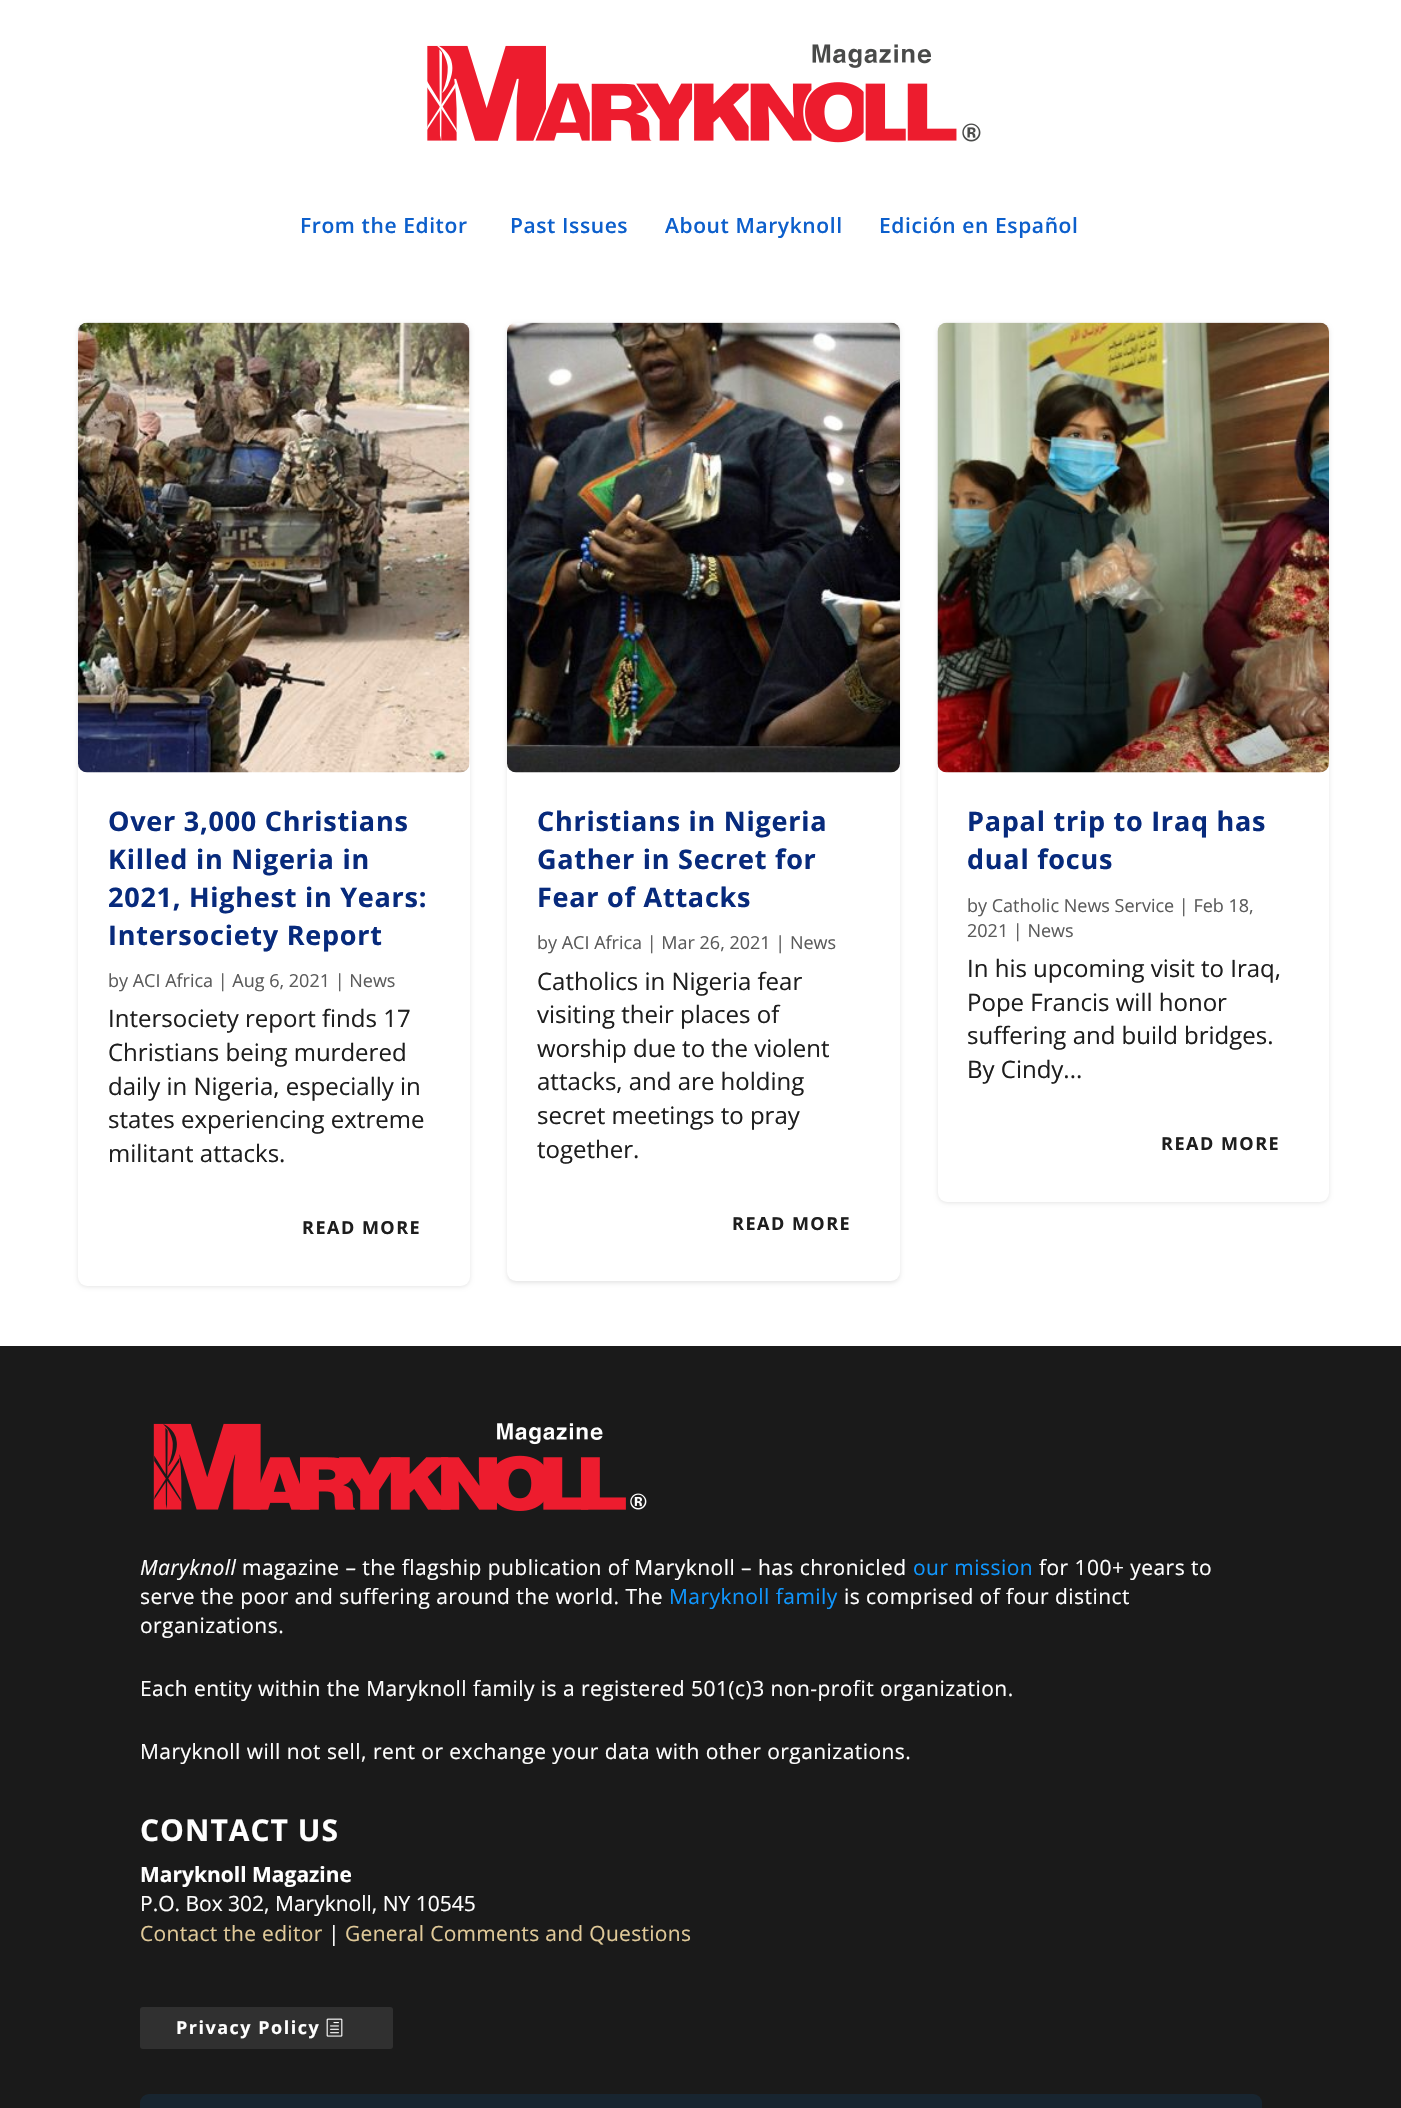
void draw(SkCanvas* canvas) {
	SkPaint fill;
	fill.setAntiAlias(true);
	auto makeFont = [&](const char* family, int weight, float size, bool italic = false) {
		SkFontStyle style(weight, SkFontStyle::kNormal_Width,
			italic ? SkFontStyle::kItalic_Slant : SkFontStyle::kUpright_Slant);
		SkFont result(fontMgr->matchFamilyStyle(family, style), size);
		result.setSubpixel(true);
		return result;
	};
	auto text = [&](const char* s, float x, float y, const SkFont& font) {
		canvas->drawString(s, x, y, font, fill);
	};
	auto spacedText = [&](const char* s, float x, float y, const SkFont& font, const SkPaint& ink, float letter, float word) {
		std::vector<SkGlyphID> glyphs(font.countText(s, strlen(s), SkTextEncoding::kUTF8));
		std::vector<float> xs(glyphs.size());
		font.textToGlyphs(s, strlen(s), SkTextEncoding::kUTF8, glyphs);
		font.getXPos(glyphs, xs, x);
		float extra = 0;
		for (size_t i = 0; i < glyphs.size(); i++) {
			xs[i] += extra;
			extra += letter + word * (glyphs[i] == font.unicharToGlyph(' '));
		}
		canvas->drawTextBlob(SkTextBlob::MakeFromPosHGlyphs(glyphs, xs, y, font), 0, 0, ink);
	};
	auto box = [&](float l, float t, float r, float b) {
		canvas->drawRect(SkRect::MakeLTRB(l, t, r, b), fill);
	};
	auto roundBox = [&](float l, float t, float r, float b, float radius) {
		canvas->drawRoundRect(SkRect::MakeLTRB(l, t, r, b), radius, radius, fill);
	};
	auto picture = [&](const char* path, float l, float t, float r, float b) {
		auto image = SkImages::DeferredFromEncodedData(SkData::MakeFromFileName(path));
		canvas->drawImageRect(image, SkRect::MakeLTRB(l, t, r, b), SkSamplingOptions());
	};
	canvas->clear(0xFFFFFFFF);
	picture("image0.png", 427, 44, 981, 143);
	fill.setColor(0x1A000000);
	fill.setMaskFilter(SkMaskFilter::MakeBlur(kNormal_SkBlurStyle, 2));
	canvas->drawRoundRect(SkRect::MakeLTRB(78, 324, 470, 1287), 9, 9, fill);
	fill.setMaskFilter(nullptr);
	fill.setColor(0xFFFFFFFF);
	roundBox(78, 323, 470, 1286, 9);
	picture("image1.png", 78, 322, 470, 773);
	fill.setColor(0x1A000000);
	fill.setMaskFilter(SkMaskFilter::MakeBlur(kNormal_SkBlurStyle, 2));
	canvas->drawRoundRect(SkRect::MakeLTRB(507, 324, 900, 1283), 9, 9, fill);
	fill.setMaskFilter(nullptr);
	fill.setColor(0xFFFFFFFF);
	roundBox(507, 323, 900, 1281, 9);
	picture("image2.png", 507, 322, 900, 773);
	fill.setColor(0x1A000000);
	fill.setMaskFilter(SkMaskFilter::MakeBlur(kNormal_SkBlurStyle, 2));
	canvas->drawRoundRect(SkRect::MakeLTRB(938, 324, 1329, 1203), 9, 9, fill);
	fill.setMaskFilter(nullptr);
	fill.setColor(0xFFFFFFFF);
	roundBox(938, 323, 1329, 1202, 9);
	picture("image3.png", 937, 322, 1329, 773);
	fill.setColor(0xFF1A1A1A);
	box(0, 1346, 1401, 2108);
	picture("image4.png", 153, 1423, 647, 1511);
	fill.setColor(0xFF303030);
	roundBox(140, 2007, 393, 2049, 3);
	picture("image5.png", 326, 2018, 343, 2037);
	fill.setColor(0xFF182530);
	roundBox(140, 2094, 1262, 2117, 9);
	auto font1 = makeFont("Open Sans", 600, 21);
	fill.setColor(0xFF0C5FCC);
	spacedText("From the Editor", 300, 233, font1, fill, 0.6f, 0);
	spacedText("Past Issues", 510, 233, font1, fill, 0.6f, 0);
	spacedText("About Maryknoll", 665, 233, font1, fill, 0.6f, 0);
	spacedText("Edición en Español", 879, 233, font1, fill, 0.6f, 0);
	auto font2 = makeFont("Open Sans", 700, 27);
	fill.setColor(0xFF072A7C);
	spacedText("Over 3,000 Christians", 108, 831, font2, fill, 0.75f, 0);
	spacedText("Killed in Nigeria in", 108, 869, font2, fill, 0.75f, 0);
	spacedText("2021, Highest in Years:", 108, 907, font2, fill, 0.75f, 0);
	spacedText("Intersociety Report", 108, 945, font2, fill, 0.75f, 0);
	auto font3 = makeFont("Open Sans", 400, 18);
	fill.setColor(0xFF5B5B5B);
	text("by ACI Africa | Aug 6, 2021 | News", 108, 987, font3);
	auto font4 = makeFont("Open Sans", 400, 24);
	fill.setColor(0xFF1E1E1E);
	text("Intersociety report finds 17", 108, 1027, font4);
	text("Christians being murdered", 108, 1061, font4);
	text("daily in Nigeria, especially in", 108, 1095, font4);
	text("states experiencing extreme", 108, 1128, font4);
	text("militant attacks.", 108, 1162, font4);
	auto font5 = makeFont("Open Sans", 700, 18);
	spacedText("READ MORE", 302, 1234, font5, fill, 1.5f, 0);
	fill.setColor(0xFF072A7C);
	spacedText("Christians in Nigeria", 537, 831, font2, fill, 0.75f, 0);
	spacedText("Gather in Secret for", 537, 869, font2, fill, 0.75f, 0);
	spacedText("Fear of Attacks", 537, 907, font2, fill, 0.75f, 0);
	fill.setColor(0xFF5B5B5B);
	text("by ACI Africa | Mar 26, 2021 | News", 537, 949, font3);
	fill.setColor(0xFF1E1E1E);
	text("Catholics in Nigeria fear", 537, 990, font4);
	text("visiting their places of", 537, 1023, font4);
	text("worship due to the violent", 537, 1057, font4);
	text("attacks, and are holding", 537, 1090, font4);
	text("secret meetings to pray", 537, 1124, font4);
	text("together.", 537, 1158, font4);
	spacedText("READ MORE", 732, 1230, font5, fill, 1.5f, 0);
	fill.setColor(0xFF072A7C);
	spacedText("Papal trip to Iraq has", 967, 831, font2, fill, 0.75f, 0);
	spacedText("dual focus", 967, 869, font2, fill, 0.75f, 0);
	fill.setColor(0xFF5B5B5B);
	text("by Catholic News Service | Feb 18,", 967, 912, font3);
	text("2021 | News", 967, 937, font3);
	fill.setColor(0xFF1E1E1E);
	text("In his upcoming visit to Iraq,", 967, 977, font4);
	text("Pope Francis will honor", 967, 1011, font4);
	text("suffering and build bridges.", 967, 1044, font4);
	text("By Cindy...", 967, 1078, font4);
	spacedText("READ MORE", 1161, 1150, font5, fill, 1.5f, 0);
	auto font6 = makeFont("Open Sans", 400, 21, true);
	fill.setColor(0xFFFFFFFF);
	spacedText("Maryknoll", 140, 1575, font6, fill, 0.45f, 0);
	auto font7 = makeFont("Open Sans", 400, 21);
	spacedText("magazine – the flagship publication of Maryknoll – has chronicled", 242, 1575, font7, fill, 0.45f, 0);
	fill.setColor(0xFF0F97FF);
	spacedText("our mission", 913, 1575, font7, fill, 0.45f, 0);
	fill.setColor(0xFFFFFFFF);
	spacedText("for 100+ years to", 1039, 1575, font7, fill, 0.45f, 0);
	spacedText("serve the poor and suffering around the world. The", 140, 1604, font7, fill, 0.45f, 0);
	fill.setColor(0xFF0F97FF);
	spacedText("Maryknoll family", 669, 1604, font7, fill, 0.45f, 0);
	fill.setColor(0xFFFFFFFF);
	spacedText("is comprised of four distinct", 844, 1604, font7, fill, 0.45f, 0);
	spacedText("organizations.", 140, 1633, font7, fill, 0.45f, 0);
	spacedText("Each entity within the Maryknoll family is a registered 501(c)3 non-profit organization.", 140, 1696, font7, fill, 0.45f, 0);
	spacedText("Maryknoll will not sell, rent or exchange your data with other organizations.", 140, 1759, font7, fill, 0.45f, 0);
	auto font8 = makeFont("Open Sans", 700, 30);
	spacedText("CONTACT US", 140, 1841, font8, fill, 1, 0);
	auto font9 = makeFont("Open Sans", 700, 21);
	text("Maryknoll Magazine", 140, 1882, font9);
	text("P.O. Box 302, Maryknoll, NY 10545", 140, 1911, font7);
	fill.setColor(0xFFE0C998);
	spacedText("Contact the editor", 140, 1941, font7, fill, 0.3f, 0);
	fill.setColor(0xFFFFFFFF);
	text("|", 328, 1941, font7);
	fill.setColor(0xFFE0C998);
	spacedText("General Comments and Questions", 345, 1941, font7, fill, 0.3f, 0);
	fill.setColor(0xFFFFFFFF);
	spacedText("Privacy Policy", 176, 2034, font5, fill, 1.5f, 0);
}
